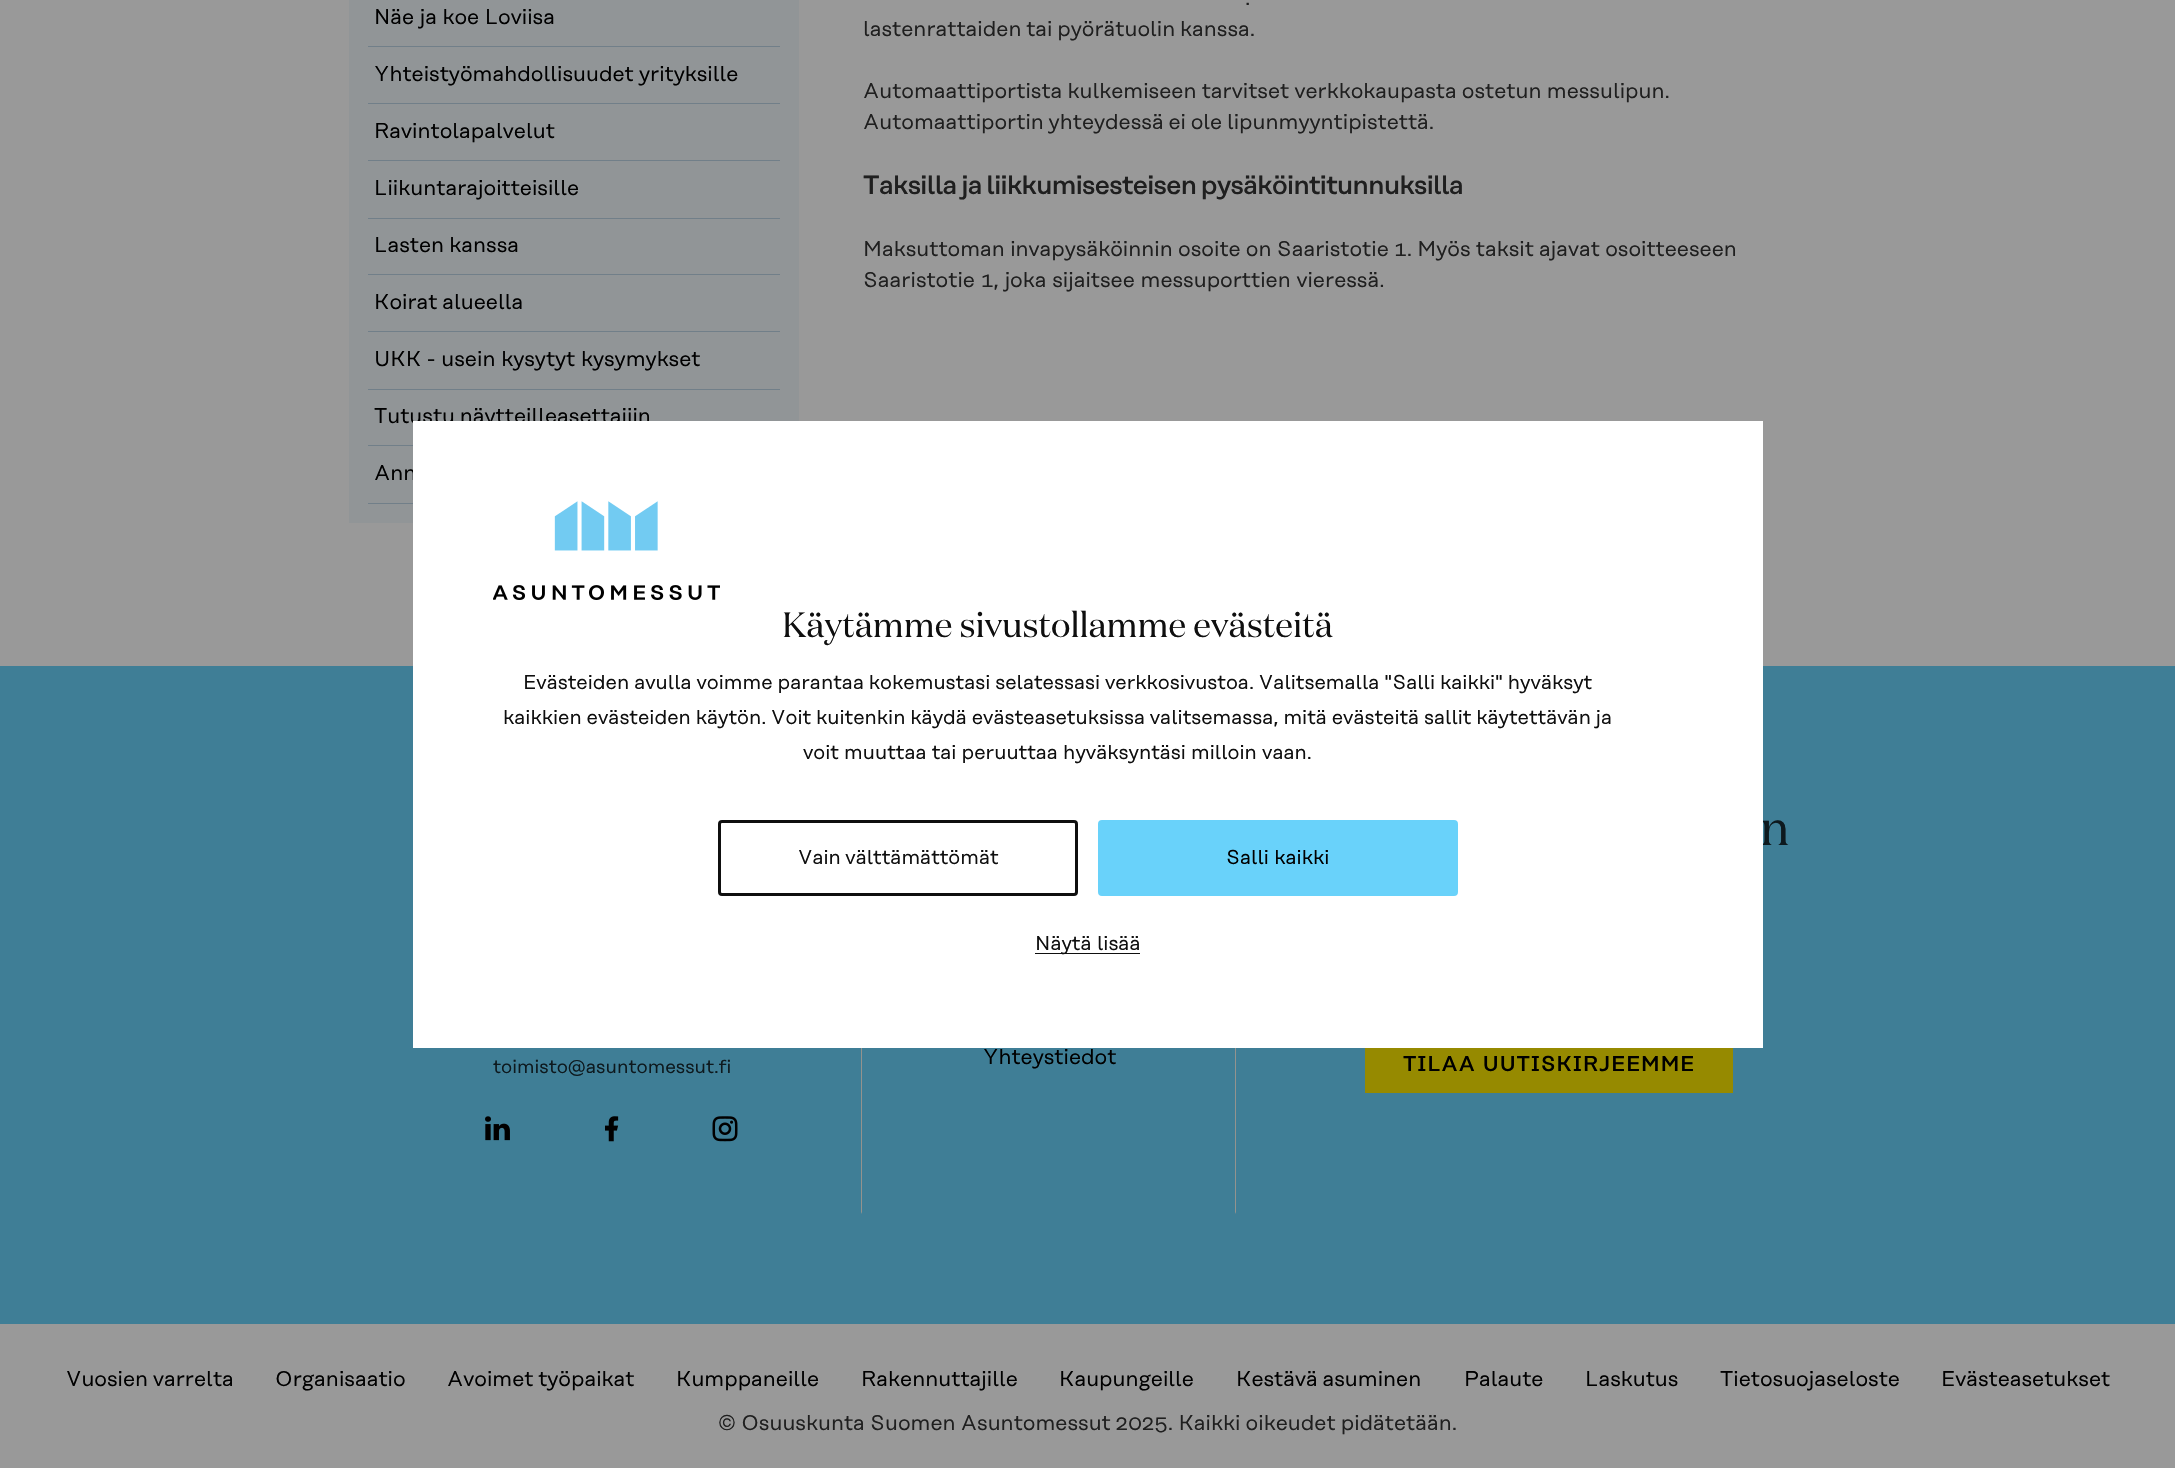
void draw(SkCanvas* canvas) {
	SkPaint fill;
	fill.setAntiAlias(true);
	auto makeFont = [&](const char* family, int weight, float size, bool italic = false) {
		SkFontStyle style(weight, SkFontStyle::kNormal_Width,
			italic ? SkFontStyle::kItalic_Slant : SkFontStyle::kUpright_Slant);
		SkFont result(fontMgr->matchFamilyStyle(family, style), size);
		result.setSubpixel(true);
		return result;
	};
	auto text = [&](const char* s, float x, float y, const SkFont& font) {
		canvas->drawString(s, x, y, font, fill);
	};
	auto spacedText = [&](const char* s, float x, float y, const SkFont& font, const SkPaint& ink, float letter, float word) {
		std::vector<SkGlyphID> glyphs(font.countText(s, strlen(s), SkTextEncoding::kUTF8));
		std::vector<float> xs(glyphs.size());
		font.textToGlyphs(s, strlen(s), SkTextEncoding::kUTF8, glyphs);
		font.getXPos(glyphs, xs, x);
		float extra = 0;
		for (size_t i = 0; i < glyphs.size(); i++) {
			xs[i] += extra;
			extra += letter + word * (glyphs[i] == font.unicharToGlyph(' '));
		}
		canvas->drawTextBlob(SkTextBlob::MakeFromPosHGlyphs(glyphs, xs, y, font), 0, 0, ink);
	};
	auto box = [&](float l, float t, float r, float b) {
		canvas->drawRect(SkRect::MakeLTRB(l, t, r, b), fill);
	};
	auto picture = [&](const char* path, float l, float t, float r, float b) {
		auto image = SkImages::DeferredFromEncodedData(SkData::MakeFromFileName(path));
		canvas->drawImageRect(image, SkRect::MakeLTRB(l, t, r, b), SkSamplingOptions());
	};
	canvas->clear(0xFF999999);
	fill.setColor(0xFF919597);
	box(349, 0, 799, 523);
	fill.setColor(0xFF717F89);
	box(368, 46, 780, 47);
	box(368, 103, 780, 104);
	box(368, 160, 780, 161);
	box(368, 218, 780, 219);
	box(368, 274, 780, 275);
	box(368, 331, 780, 332);
	box(368, 389, 780, 390);
	box(368, 445, 413, 446);
	box(368, 503, 413, 504);
	fill.setColor(0xFF3F7E96);
	box(0, 666, 2175, 1324);
	picture("image0.png", 485, 1116, 510, 1141);
	picture("image1.png", 605, 1116, 619, 1142);
	picture("image2.png", 712, 1116, 738, 1142);
	fill.setColor(0xFF93938E);
	canvas->drawPath(SkPathBuilder().moveTo(1236, 701).lineTo(1236, 1214).lineTo(1235, 1212).lineTo(1235, 701).close().detach(), fill);
	canvas->drawPath(SkPathBuilder().moveTo(861, 1214).lineTo(861, 701).lineTo(862, 701).lineTo(862, 1212).close().detach(), fill);
	fill.setColor(0xFF968A00);
	box(1365, 1048, 1733, 1093);
	auto font1 = makeFont("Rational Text", 400, 21.25f);
	fill.setColor(0xFF000000);
	spacedText("Näe ja koe Loviisa", 374, 24, font1, fill, 0, -0.25f);
	spacedText("Yhteistyömahdollisuudet yrityksille", 374, 81, font1, fill, 0, -0.5f);
	text("Ravintolapalvelut", 374, 138, font1);
	text("Liikuntarajoitteisille", 374, 195, font1);
	spacedText("Lasten kanssa", 374, 252, font1, fill, 0, -0.6f);
	spacedText("Koirat alueella", 374, 309, font1, fill, 0, -1);
	text("UKK - usein kysytyt kysymykset", 374, 366, font1);
	spacedText("Tutustu näytteilleasettajiin", 374, 423, font1, fill, 0, -1);
	spacedText("Ann", 374, 480, font1, fill, 0, -1);
	fill.setColor(0xFF1F1F1F);
	text(".", 1245, 5, font1);
	spacedText("lastenrattaiden tai pyörätuolin kanssa.", 863, 36, font1, fill, 0, -1);
	spacedText("Automaattiportista kulkemiseen tarvitset verkkokaupasta ostetun messulipun.", 863, 98, font1, fill, 0, -0.5f);
	spacedText("Automaattiportin yhteydessä ei ole lipunmyyntipistettä.", 863, 129, font1, fill, 0, -1);
	auto font2 = makeFont("Rational Text", 500, 26.25f);
	spacedText("Taksilla ja liikkumisesteisen pysäköintitunnuksilla", 863, 194, font2, fill, -0.62f, -1.5f);
	spacedText("Maksuttoman invapysäköinnin osoite on Saaristotie 1. Myös taksit ajavat osoitteeseen", 863, 256, font1, fill, 0, -0.5f);
	text("Saaristotie 1, joka sijaitsee messuporttien vieressä.", 863, 287, font1);
	auto font3 = makeFont("Rational Text", 400, 18.75f);
	fill.setColor(0xFF0D191E);
	text("toimisto@asuntomessut.fi", 493, 1073, font3);
	fill.setColor(0xFF000000);
	text("Yhteystiedot", 983, 1064, font1);
	auto font4 = makeFont("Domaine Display", 400, 50);
	fill.setColor(0xFF0D191E);
	text("n", 1760, 845, font4);
	auto font5 = makeFont("Rational Text", 500, 21.25f);
	fill.setColor(0xFF000000);
	spacedText("TILAA UUTISKIRJEEMME", 1403, 1071, font5, fill, 0.6f, 1);
	spacedText("Vuosien varrelta", 66, 1386, font1, fill, 0, -1);
	text("Organisaatio", 275, 1386, font1);
	spacedText("Avoimet työpaikat", 447, 1386, font1, fill, 0, -1);
	text("Kumppaneille", 676, 1386, font1);
	text("Rakennuttajille", 861, 1386, font1);
	text("Kaupungeille", 1059, 1386, font1);
	spacedText("Kestävä asuminen", 1236, 1386, font1, fill, 0, -1);
	text("Palaute", 1464, 1386, font1);
	text("Laskutus", 1585, 1386, font1);
	text("Tietosuojaseloste", 1720, 1386, font1);
	text("Evästeasetukset", 1941, 1386, font1);
	fill.setColor(0xFF1F1F1F);
	spacedText("© Osuuskunta Suomen Asuntomessut 2025. Kaikki oikeudet pidätetään.", 718, 1430, font1, fill, 0, -0.5f);
	fill.setColor(0xFFFFFFFF);
	box(413, 421, 1763, 1048);
	picture("image3.png", 493, 501, 720, 600);
	auto font6 = makeFont("Domaine Display", 400, 35);
	fill.setColor(0xFF0F0F0F);
	text("Käytämme sivustollamme evästeitä", 782, 637, font6);
	auto font7 = makeFont("Rational Text", 400, 20);
	spacedText("Evästeiden avulla voimme parantaa kokemustasi selatessasi verkkosivustoa. Valitsemalla \"Salli kaikki\" hyväksyt", 523, 689, font7, fill, 0, -0.5f);
	spacedText("kaikkien evästeiden käytön. Voit kuitenkin käydä evästeasetuksissa valitsemassa, mitä evästeitä sallit käytettävän ja", 503, 724, font7, fill, 0, -0.6f);
	spacedText("voit muuttaa tai peruuttaa hyväksyntäsi milloin vaan.", 803, 759, font7, fill, 0, -0.25f);
	fill.setStyle(SkPaint::kStroke_Style);
	fill.setStrokeWidth(3);
	canvas->drawRoundRect(SkRect::MakeLTRB(719.5f, 821.5f, 1076.5f, 894.5f), 2.5f, 2.5f, fill);
	fill.setStyle(SkPaint::kFill_Style);
	spacedText("Vain välttämättömät", 798, 864, font7, fill, 0, -1);
	fill.setColor(0xFF69D2FA);
	canvas->drawRoundRect(SkRect::MakeLTRB(1099.5f, 821.5f, 1456.5f, 894.5f), 2.5f, 2.5f, fill);
	fill.setStyle(SkPaint::kStroke_Style);
	canvas->drawRoundRect(SkRect::MakeLTRB(1099.5f, 821.5f, 1456.5f, 894.5f), 2.5f, 2.5f, fill);
	fill.setStyle(SkPaint::kFill_Style);
	fill.setColor(0xFF000000);
	text("Salli kaikki", 1226, 864, font7);
	fill.setColor(0xFF0F0F0F);
	box(1035, 953, 1140, 954);
	text("Näytä lisää", 1035, 950, font7);
}
